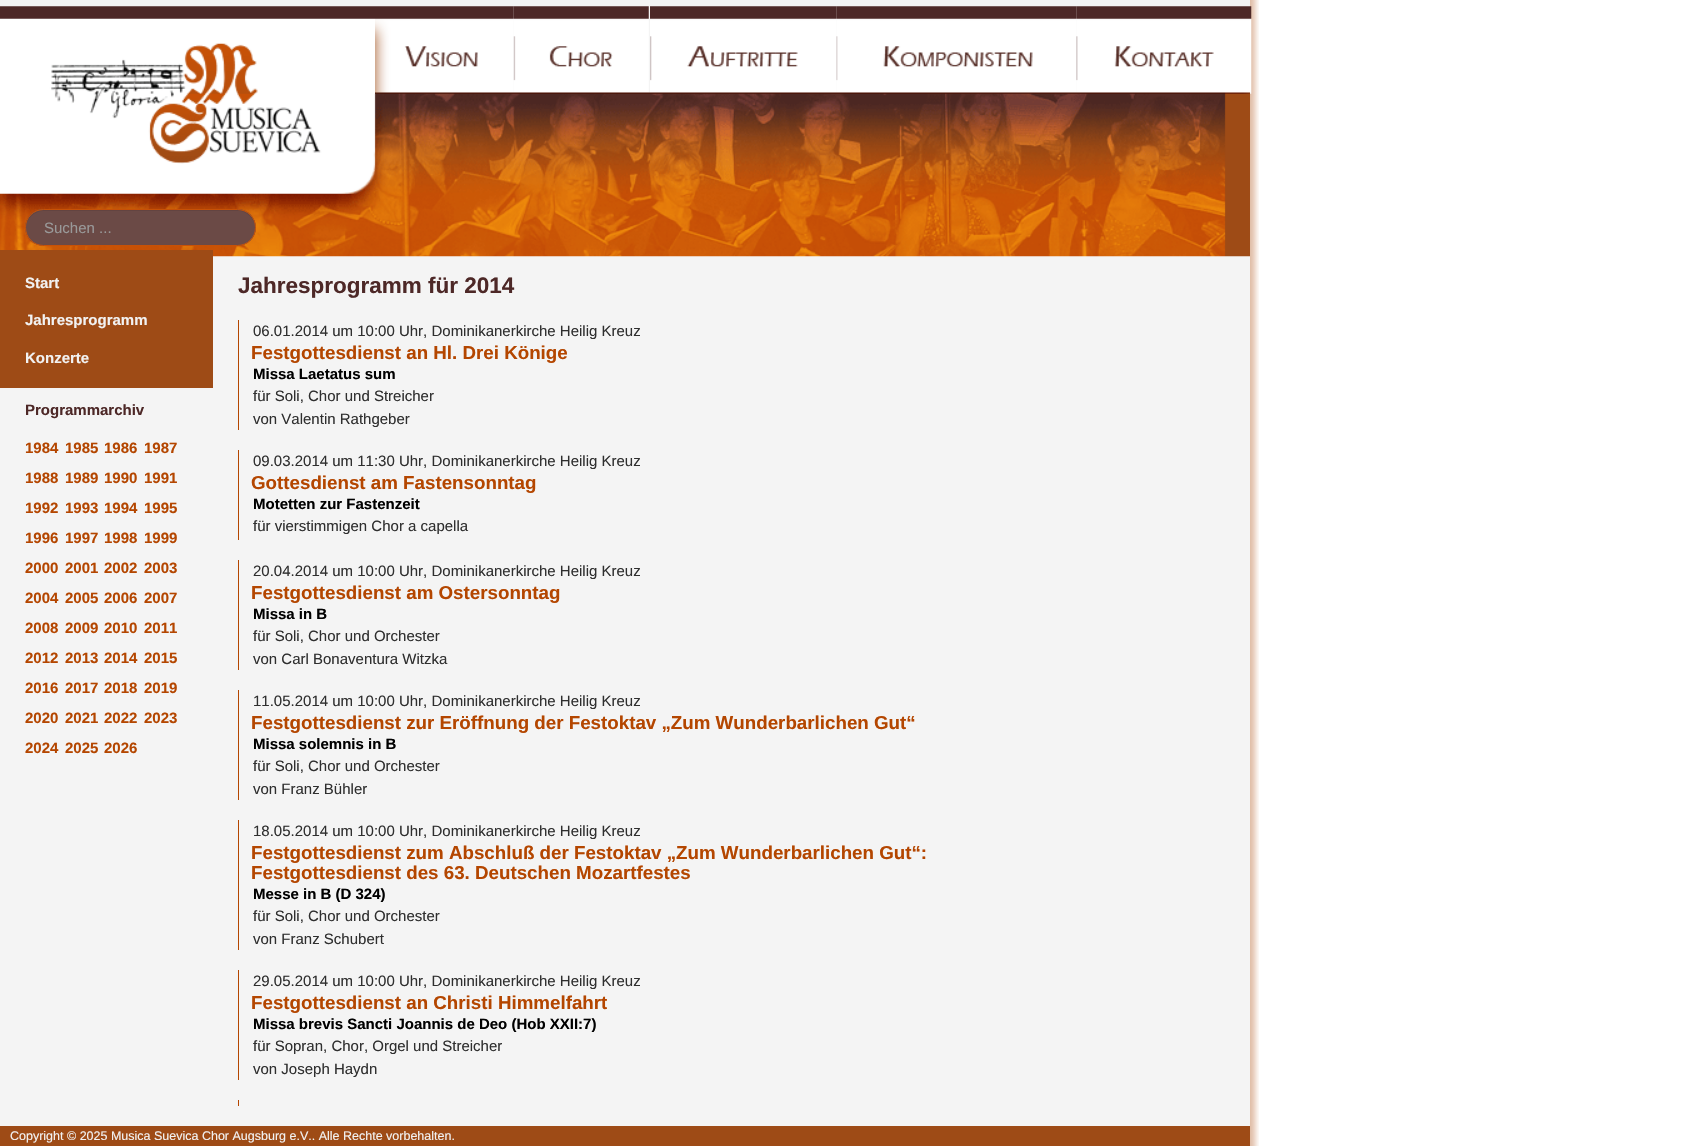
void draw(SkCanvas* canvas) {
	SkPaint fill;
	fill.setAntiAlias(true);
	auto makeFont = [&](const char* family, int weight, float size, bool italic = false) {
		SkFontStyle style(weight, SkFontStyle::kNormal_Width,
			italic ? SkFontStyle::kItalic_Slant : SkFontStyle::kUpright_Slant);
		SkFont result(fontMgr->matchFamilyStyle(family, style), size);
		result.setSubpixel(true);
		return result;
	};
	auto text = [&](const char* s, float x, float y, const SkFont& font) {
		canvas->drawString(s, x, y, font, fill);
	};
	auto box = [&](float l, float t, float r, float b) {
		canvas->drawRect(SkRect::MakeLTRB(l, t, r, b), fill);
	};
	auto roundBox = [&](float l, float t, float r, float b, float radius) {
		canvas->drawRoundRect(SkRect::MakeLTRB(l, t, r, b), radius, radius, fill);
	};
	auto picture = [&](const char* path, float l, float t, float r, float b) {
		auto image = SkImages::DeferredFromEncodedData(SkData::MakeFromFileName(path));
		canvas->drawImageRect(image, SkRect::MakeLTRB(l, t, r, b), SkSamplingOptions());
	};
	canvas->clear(0xFFFFFFFF);
	fill.setColor(0xFFF4F4F4);
	box(0, 0, 1250, 1126);
	picture("image0.png", 1250, 0, 1259, 1146);
	picture("image1.png", 0, 6, 375, 94);
	picture("image2.png", 375, 6, 514, 93);
	picture("image3.png", 513, 6, 649, 93);
	picture("image4.png", 650, 6, 837, 93);
	picture("image5.png", 836, 6, 1077, 93);
	picture("image6.png", 1076, 6, 1252, 94);
	picture("image7.png", 375, 92, 1250, 94);
	picture("image8.png", 0, 93, 1250, 257);
	fill.setColor(0xFF6B4A46);
	roundBox(25, 209, 256, 246, 18.5f);
	fill.setColor(0xFF634441);
	canvas->drawPath(SkPathBuilder().moveTo(44, 211).lineTo(238, 211).cubicTo(247, 211, 255, 219, 255, 228).cubicTo(256, 203, 218, 210, 205, 210).lineTo(76, 210).cubicTo(63, 210, 25, 203, 26, 228).cubicTo(26, 219, 34, 211, 44, 211).close().detach(), fill);
	fill.setStyle(SkPaint::kStroke_Style);
	fill.setStrokeWidth(1);
	fill.setColor(0xFFC75107);
	canvas->drawRoundRect(SkRect::MakeLTRB(25.5f, 209.5f, 255.5f, 245.5f), 18, 18, fill);
	fill.setStyle(SkPaint::kFill_Style);
	fill.setColor(0xFF9E4B16);
	box(0, 250, 213, 388);
	fill.setColor(0xFFB44600);
	box(238, 320, 239, 430);
	box(238, 450, 239, 540);
	box(238, 560, 239, 670);
	box(238, 690, 239, 800);
	box(238, 820, 239, 950);
	box(238, 970, 239, 1080);
	box(238, 1100, 239, 1106);
	fill.setColor(0xFF9E4B16);
	box(0, 1126, 1250, 1146);
	auto font1 = makeFont("Liberation Sans", 400, 15);
	fill.setColor(0xFF999999);
	text("Suchen ...", 44, 233, font1);
	auto font2 = makeFont("Liberation Sans", 700, 15);
	fill.setColor(0xFFF2F2F2);
	text("Start", 25, 288, font2);
	text("Jahresprogramm", 25, 325, font2);
	text("Konzerte", 25, 363, font2);
	fill.setColor(0xFF4D2827);
	text("Programmarchiv", 25, 415, font2);
	fill.setColor(0xFFB44600);
	text("1984", 25, 453, font2);
	text("1985", 65, 453, font2);
	text("1986", 104, 453, font2);
	text("1987", 144, 453, font2);
	text("1988", 25, 483, font2);
	text("1989", 65, 483, font2);
	text("1990", 104, 483, font2);
	text("1991", 144, 483, font2);
	text("1992", 25, 513, font2);
	text("1993", 65, 513, font2);
	text("1994", 104, 513, font2);
	text("1995", 144, 513, font2);
	text("1996", 25, 543, font2);
	text("1997", 65, 543, font2);
	text("1998", 104, 543, font2);
	text("1999", 144, 543, font2);
	text("2000", 25, 573, font2);
	text("2001", 65, 573, font2);
	text("2002", 104, 573, font2);
	text("2003", 144, 573, font2);
	text("2004", 25, 603, font2);
	text("2005", 65, 603, font2);
	text("2006", 104, 603, font2);
	text("2007", 144, 603, font2);
	text("2008", 25, 633, font2);
	text("2009", 65, 633, font2);
	text("2010", 104, 633, font2);
	text("2011", 144, 633, font2);
	text("2012", 25, 663, font2);
	text("2013", 65, 663, font2);
	text("2014", 104, 663, font2);
	text("2015", 144, 663, font2);
	text("2016", 25, 693, font2);
	text("2017", 65, 693, font2);
	text("2018", 104, 693, font2);
	text("2019", 144, 693, font2);
	text("2020", 25, 723, font2);
	text("2021", 65, 723, font2);
	text("2022", 104, 723, font2);
	text("2023", 144, 723, font2);
	text("2024", 25, 753, font2);
	text("2025", 65, 753, font2);
	text("2026", 104, 753, font2);
	auto font3 = makeFont("Liberation Sans", 700, 22.5f);
	fill.setColor(0xFF4D2827);
	text("Jahresprogramm für 2014", 238, 293, font3);
	fill.setColor(0xFF2F2F2F);
	text("06.01.2014 um 10:00 Uhr, Dominikanerkirche Heilig Kreuz", 253, 336, font1);
	auto font4 = makeFont("Liberation Sans", 700, 18.75f);
	fill.setColor(0xFFB44600);
	text("Festgottesdienst an Hl. Drei Könige", 251, 359, font4);
	fill.setColor(0xFF000000);
	text("Missa Laetatus sum", 253, 379, font2);
	fill.setColor(0xFF2F2F2F);
	text("für Soli, Chor und Streicher", 253, 401, font1);
	text("von Valentin Rathgeber", 253, 424, font1);
	text("09.03.2014 um 11:30 Uhr, Dominikanerkirche Heilig Kreuz", 253, 466, font1);
	fill.setColor(0xFFB44600);
	text("Gottesdienst am Fastensonntag", 251, 489, font4);
	fill.setColor(0xFF000000);
	text("Motetten zur Fastenzeit", 253, 509, font2);
	fill.setColor(0xFF2F2F2F);
	text("für vierstimmigen Chor a capella", 253, 531, font1);
	text("20.04.2014 um 10:00 Uhr, Dominikanerkirche Heilig Kreuz", 253, 576, font1);
	fill.setColor(0xFFB44600);
	text("Festgottesdienst am Ostersonntag", 251, 599, font4);
	fill.setColor(0xFF000000);
	text("Missa in B", 253, 619, font2);
	fill.setColor(0xFF2F2F2F);
	text("für Soli, Chor und Orchester", 253, 641, font1);
	text("von Carl Bonaventura Witzka", 253, 664, font1);
	text("11.05.2014 um 10:00 Uhr, Dominikanerkirche Heilig Kreuz", 253, 706, font1);
	fill.setColor(0xFFB44600);
	text("Festgottesdienst zur Eröffnung der Festoktav „Zum Wunderbarlichen Gut“", 251, 729, font4);
	fill.setColor(0xFF000000);
	text("Missa solemnis in B", 253, 749, font2);
	fill.setColor(0xFF2F2F2F);
	text("für Soli, Chor und Orchester", 253, 771, font1);
	text("von Franz Bühler", 253, 794, font1);
	text("18.05.2014 um 10:00 Uhr, Dominikanerkirche Heilig Kreuz", 253, 836, font1);
	fill.setColor(0xFFB44600);
	text("Festgottesdienst zum Abschluß der Festoktav „Zum Wunderbarlichen Gut“:", 251, 859, font4);
	text("Festgottesdienst des 63. Deutschen Mozartfestes", 251, 879, font4);
	fill.setColor(0xFF000000);
	text("Messe in B (D 324)", 253, 899, font2);
	fill.setColor(0xFF2F2F2F);
	text("für Soli, Chor und Orchester", 253, 921, font1);
	text("von Franz Schubert", 253, 944, font1);
	text("29.05.2014 um 10:00 Uhr, Dominikanerkirche Heilig Kreuz", 253, 986, font1);
	fill.setColor(0xFFB44600);
	text("Festgottesdienst an Christi Himmelfahrt", 251, 1009, font4);
	fill.setColor(0xFF000000);
	text("Missa brevis Sancti Joannis de Deo (Hob XXII:7)", 253, 1029, font2);
	fill.setColor(0xFF2F2F2F);
	text("für Sopran, Chor, Orgel und Streicher", 253, 1051, font1);
	text("von Joseph Haydn", 253, 1074, font1);
	auto font5 = makeFont("Liberation Sans", 400, 12.5f);
	fill.setColor(0xFFF2F2F2);
	text("Copyright © 2025 Musica Suevica Chor Augsburg e.V.. Alle Rechte vorbehalten.", 10, 1140, font5);
}
